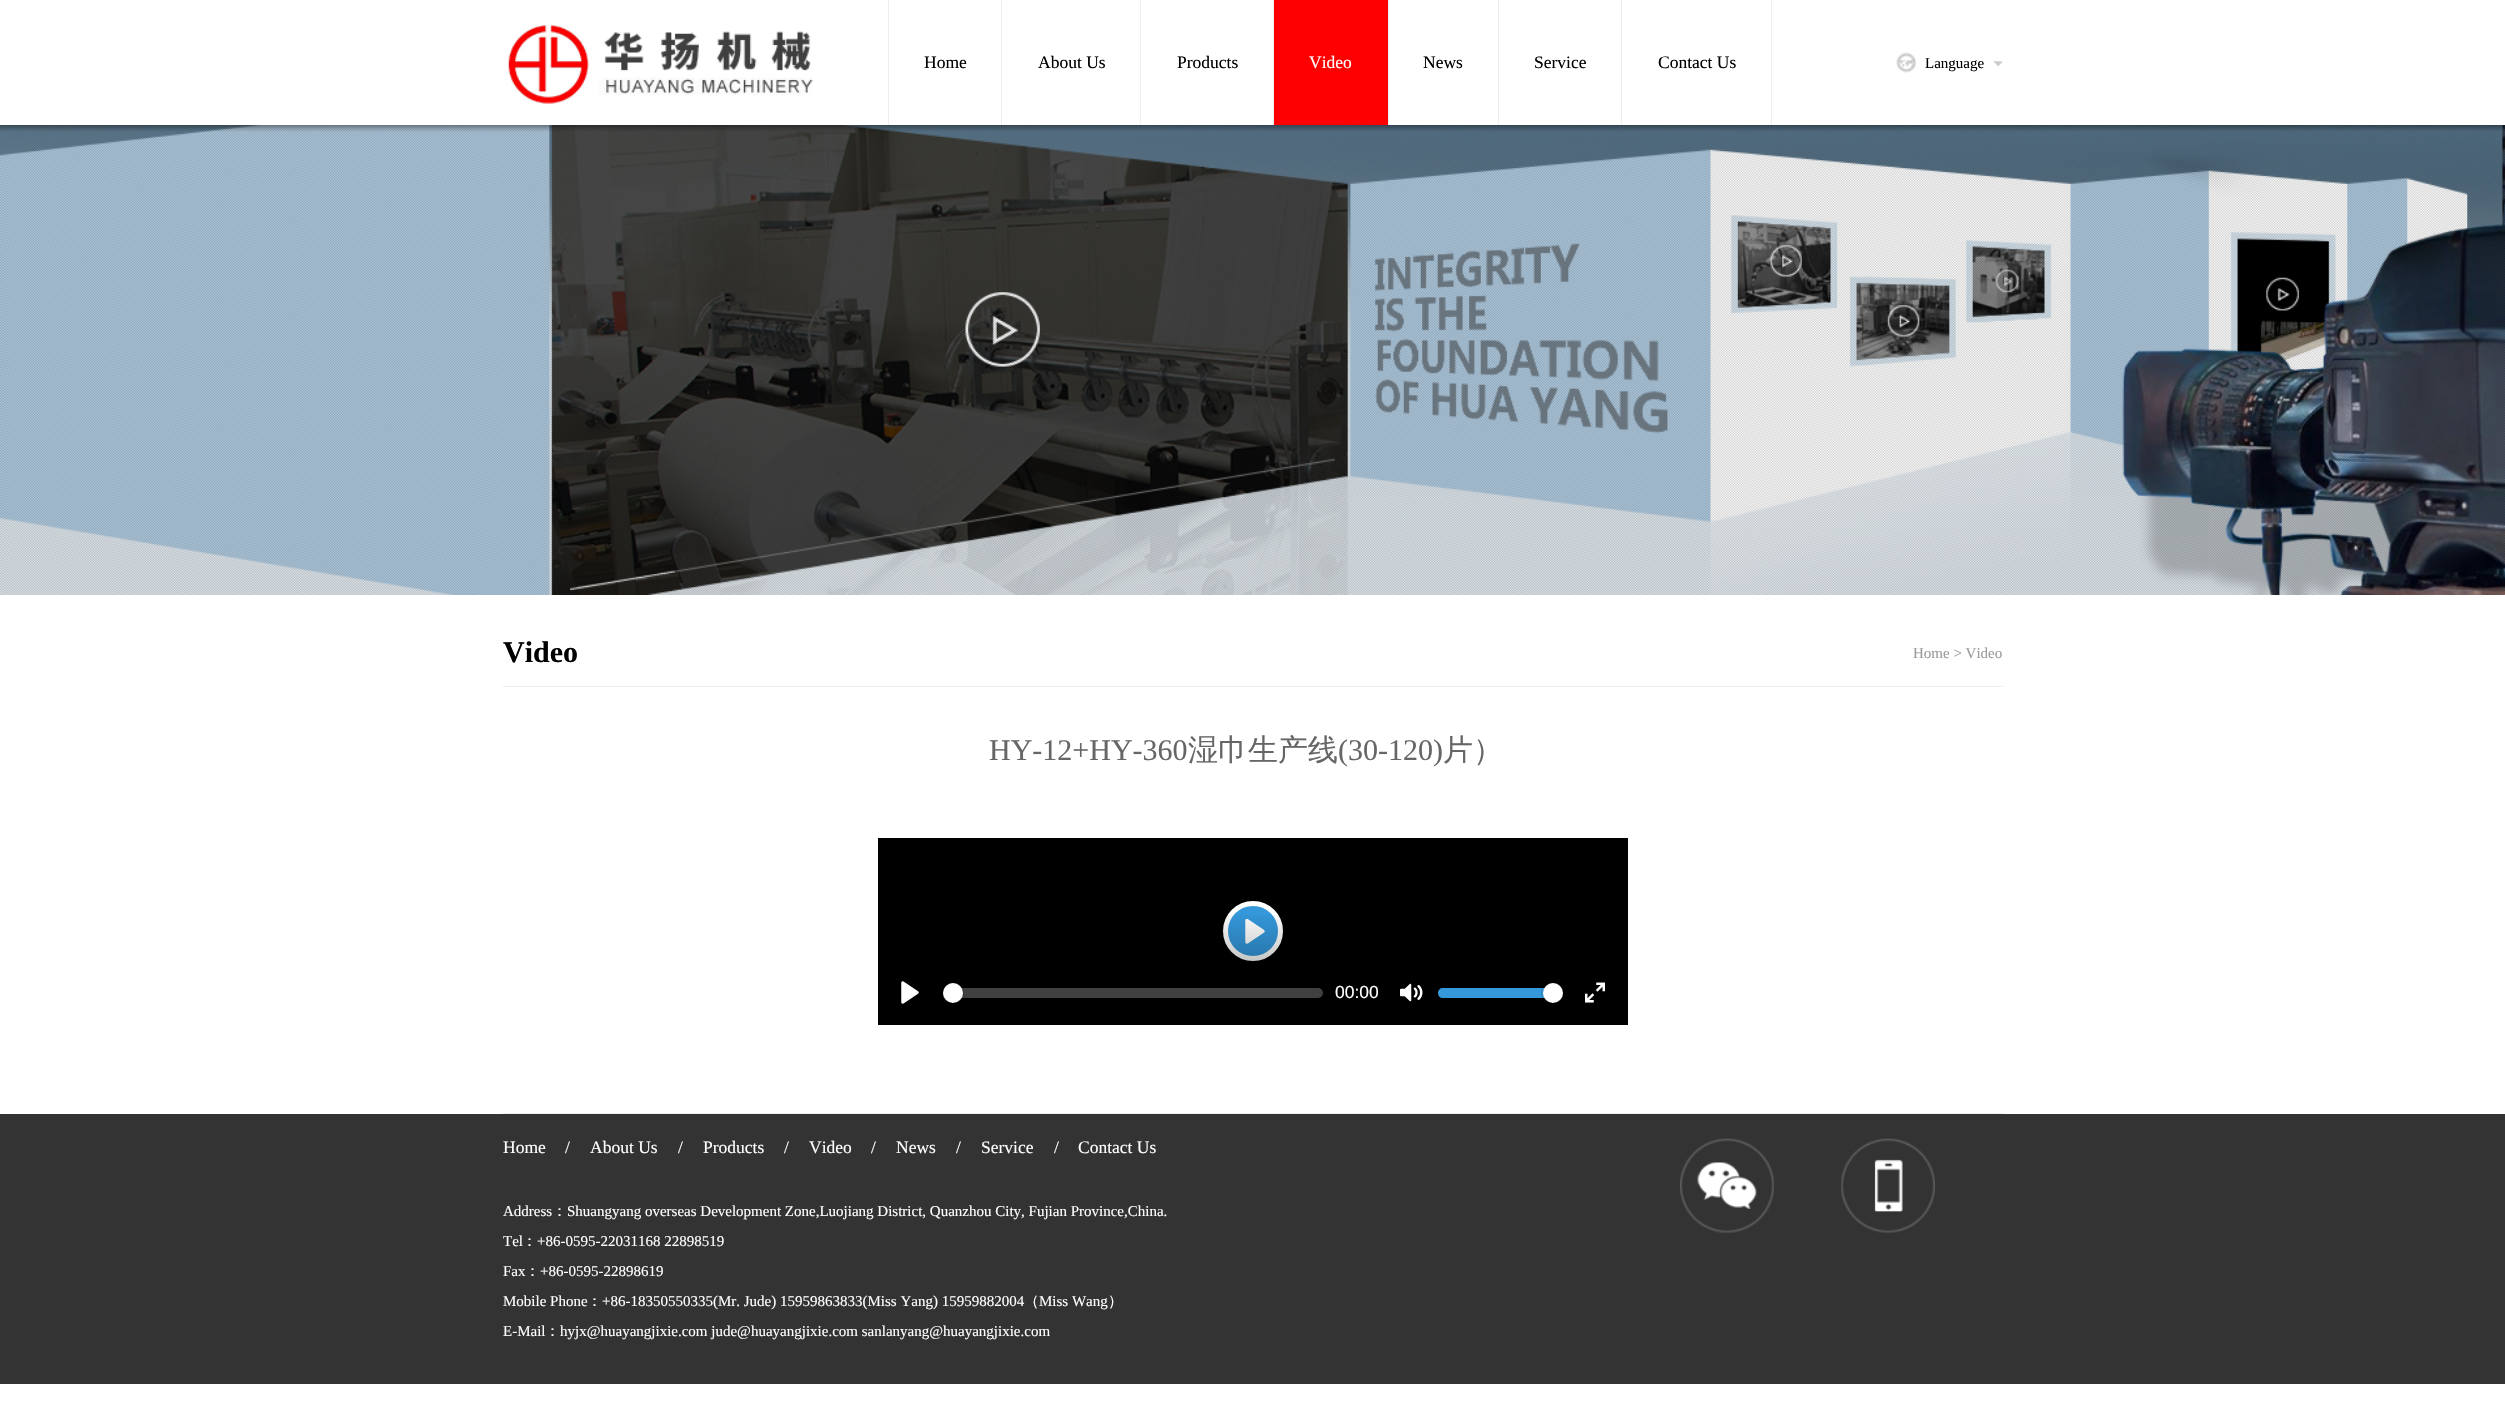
void draw(SkCanvas* canvas) {
	SkPaint fill;
	fill.setAntiAlias(true);
	auto makeFont = [&](const char* family, int weight, float size, bool italic = false) {
		SkFontStyle style(weight, SkFontStyle::kNormal_Width,
			italic ? SkFontStyle::kItalic_Slant : SkFontStyle::kUpright_Slant);
		SkFont result(fontMgr->matchFamilyStyle(family, style), size);
		result.setSubpixel(true);
		return result;
	};
	auto text = [&](const char* s, float x, float y, const SkFont& font) {
		canvas->drawString(s, x, y, font, fill);
	};
	auto box = [&](float l, float t, float r, float b) {
		canvas->drawRect(SkRect::MakeLTRB(l, t, r, b), fill);
	};
	auto roundBox = [&](float l, float t, float r, float b, float radius) {
		canvas->drawRoundRect(SkRect::MakeLTRB(l, t, r, b), radius, radius, fill);
	};
	auto picture = [&](const char* path, float l, float t, float r, float b) {
		auto image = SkImages::DeferredFromEncodedData(SkData::MakeFromFileName(path));
		canvas->drawImageRect(image, SkRect::MakeLTRB(l, t, r, b), SkSamplingOptions());
	};
	canvas->clear(0xFFFFFFFF);
	picture("image0.png", 508, 25, 813, 104);
	fill.setColor(0xFFEEEEEE);
	box(1001, 0, 1002, 125);
	box(888, 0, 889, 125);
	box(1140, 0, 1141, 125);
	box(1273, 0, 1274, 125);
	box(1388, 0, 1389, 125);
	fill.setColor(0xFFFF0000);
	box(1274, 0, 1388, 125);
	fill.setColor(0xFFEEEEEE);
	box(1498, 0, 1499, 125);
	box(1621, 0, 1622, 125);
	box(1771, 0, 1772, 125);
	picture("image1.png", 1896, 52, 1917, 73);
	picture("image2.png", 1993, 61, 2003, 67);
	picture("image3.png", 0, 125, 2505, 595);
	box(503, 1113, 2003, 1114);
	box(503, 686, 2003, 687);
	fill.setColor(0xFF000000);
	box(878, 838, 1628, 1025);
	fill.setColor(0xFF3498DB);
	canvas->drawCircle(1253, 931, 27.5f, fill);
	fill.setStyle(SkPaint::kStroke_Style);
	fill.setStrokeWidth(5);
	fill.setColor(0xFFFFFFFF);
	canvas->drawCircle(1253, 931, 27.5f, fill);
	picture("image4.png", 1245, 919, 1265, 944);
	fill.setStyle(SkPaint::kFill_Style);
	{
		const SkColor colors[] = {0x00000000, 0x80000000};
		const float stops[] = {0, 1};
		const SkPoint ends[] = {{1253, 910}, {1253, 1025}};
		fill.setShader(SkGradientShader::MakeLinear(ends, colors, stops, 2, SkTileMode::kClamp));
		fill.setAlpha(255);
	}
	box(1223, 915, 1283, 961);
	picture("image5.png", 901, 981, 919, 1004);
	fill.setShader(nullptr);
	fill.setColor(0xFF404040);
	roundBox(943, 988, 1323, 998, 5);
	fill.setStyle(SkPaint::kStroke_Style);
	fill.setStrokeWidth(1);
	fill.setColor(0x26000000);
	canvas->drawCircle(952.5f, 992.5f, 11, fill);
	fill.setStyle(SkPaint::kFill_Style);
	fill.setColor(0xFFFFFFFF);
	canvas->drawCircle(953, 993, 10, fill);
	picture("image6.png", 1400, 983, 1423, 1002);
	fill.setColor(0xFF3498DB);
	canvas->drawPath(SkPathBuilder().moveTo(1443, 988).lineTo(1561, 988).lineTo(1561, 998).lineTo(1443, 998).cubicTo(1440, 998, 1438, 996, 1438, 993).cubicTo(1438, 990, 1440, 988, 1443, 988).close().detach(), fill);
	fill.setStyle(SkPaint::kStroke_Style);
	fill.setColor(0x26000000);
	canvas->drawCircle(1552.5f, 992.5f, 11, fill);
	fill.setStyle(SkPaint::kFill_Style);
	fill.setMaskFilter(SkMaskFilter::MakeBlur(kNormal_SkBlurStyle, 0.5f));
	canvas->drawRoundRect(SkRect::MakeLTRB(1543, 984, 1563, 1004), 10, 10, fill);
	fill.setMaskFilter(nullptr);
	fill.setColor(0xFFFFFFFF);
	canvas->drawCircle(1553, 993, 10, fill);
	picture("image7.png", 1585, 982, 1605, 1003);
	fill.setColor(0xFF333333);
	box(0, 1114, 2505, 1384);
	picture("image8.png", 1680, 1138, 1774, 1233);
	picture("image9.png", 1841, 1138, 1935, 1233);
	auto font1 = makeFont("Liberation Serif", 400, 17.5f);
	fill.setColor(0xFF000000);
	text("Home", 924, 68, font1);
	text("About Us", 1038, 68, font1);
	text("Products", 1177, 68, font1);
	fill.setColor(0xFFFFFFFF);
	text("Video", 1309, 68, font1);
	fill.setColor(0xFF000000);
	text("News", 1423, 68, font1);
	text("Service", 1534, 68, font1);
	text("Contact Us", 1658, 68, font1);
	auto font2 = makeFont("Liberation Serif", 400, 15);
	text("Language", 1925, 68, font2);
	auto font3 = makeFont("Liberation Serif", 700, 30);
	text("Video", 503, 662, font3);
	fill.setColor(0xFF999999);
	text("Home > Video", 1913, 658, font2);
	auto font4 = makeFont("Liberation Serif", 400, 30);
	fill.setColor(0xFF666666);
	text("HY-12+HY-360", 989, 760, font4);
	auto font5 = makeFont("WenQuanYi Zen Hei", 500, 30);
	text("湿巾生产线", 1188, 760, font5);
	text("(30-120)", 1338, 760, font4);
	text("片）", 1443, 760, font5);
	auto font6 = makeFont("Liberation Sans", 400, 17.5f);
	fill.setColor(0xFFFFFFFF);
	text("00:00", 1335, 998, font6);
	text("Home", 503, 1153, font1);
	text("/", 565, 1153, font1);
	text("About Us", 590, 1153, font1);
	text("/", 678, 1153, font1);
	text("Products", 703, 1153, font1);
	text("/", 784, 1153, font1);
	text("Video", 809, 1153, font1);
	text("/", 871, 1153, font1);
	text("News", 896, 1153, font1);
	text("/", 956, 1153, font1);
	text("Service", 981, 1153, font1);
	text("/", 1054, 1153, font1);
	text("Contact Us", 1078, 1153, font1);
	text("Address", 503, 1216, font2);
	auto font7 = makeFont("WenQuanYi Zen Hei", 500, 15);
	text("：", 552, 1216, font7);
	text("Shuangyang overseas Development Zone,Luojiang District, Quanzhou City, Fujian Province,China.", 567, 1216, font2);
	text("Tel", 503, 1246, font2);
	text("：", 522, 1246, font7);
	text("+86-0595-22031168 22898519", 537, 1246, font2);
	text("Fax", 503, 1276, font2);
	text("：", 525, 1276, font7);
	text("+86-0595-22898619", 540, 1276, font2);
	text("Mobile Phone", 503, 1306, font2);
	text("：", 587, 1306, font7);
	text("+86-18350550335(Mr. Jude) 15959863833(Miss Yang) 15959882004", 602, 1306, font2);
	text("（", 1024, 1306, font7);
	text("Miss Wang", 1039, 1306, font2);
	text("）", 1108, 1306, font7);
	text("E-Mail", 503, 1336, font2);
	text("：", 545, 1336, font7);
	text("hyjx@huayangjixie.com jude@huayangjixie.com sanlanyang@huayangjixie.com", 560, 1336, font2);
}
